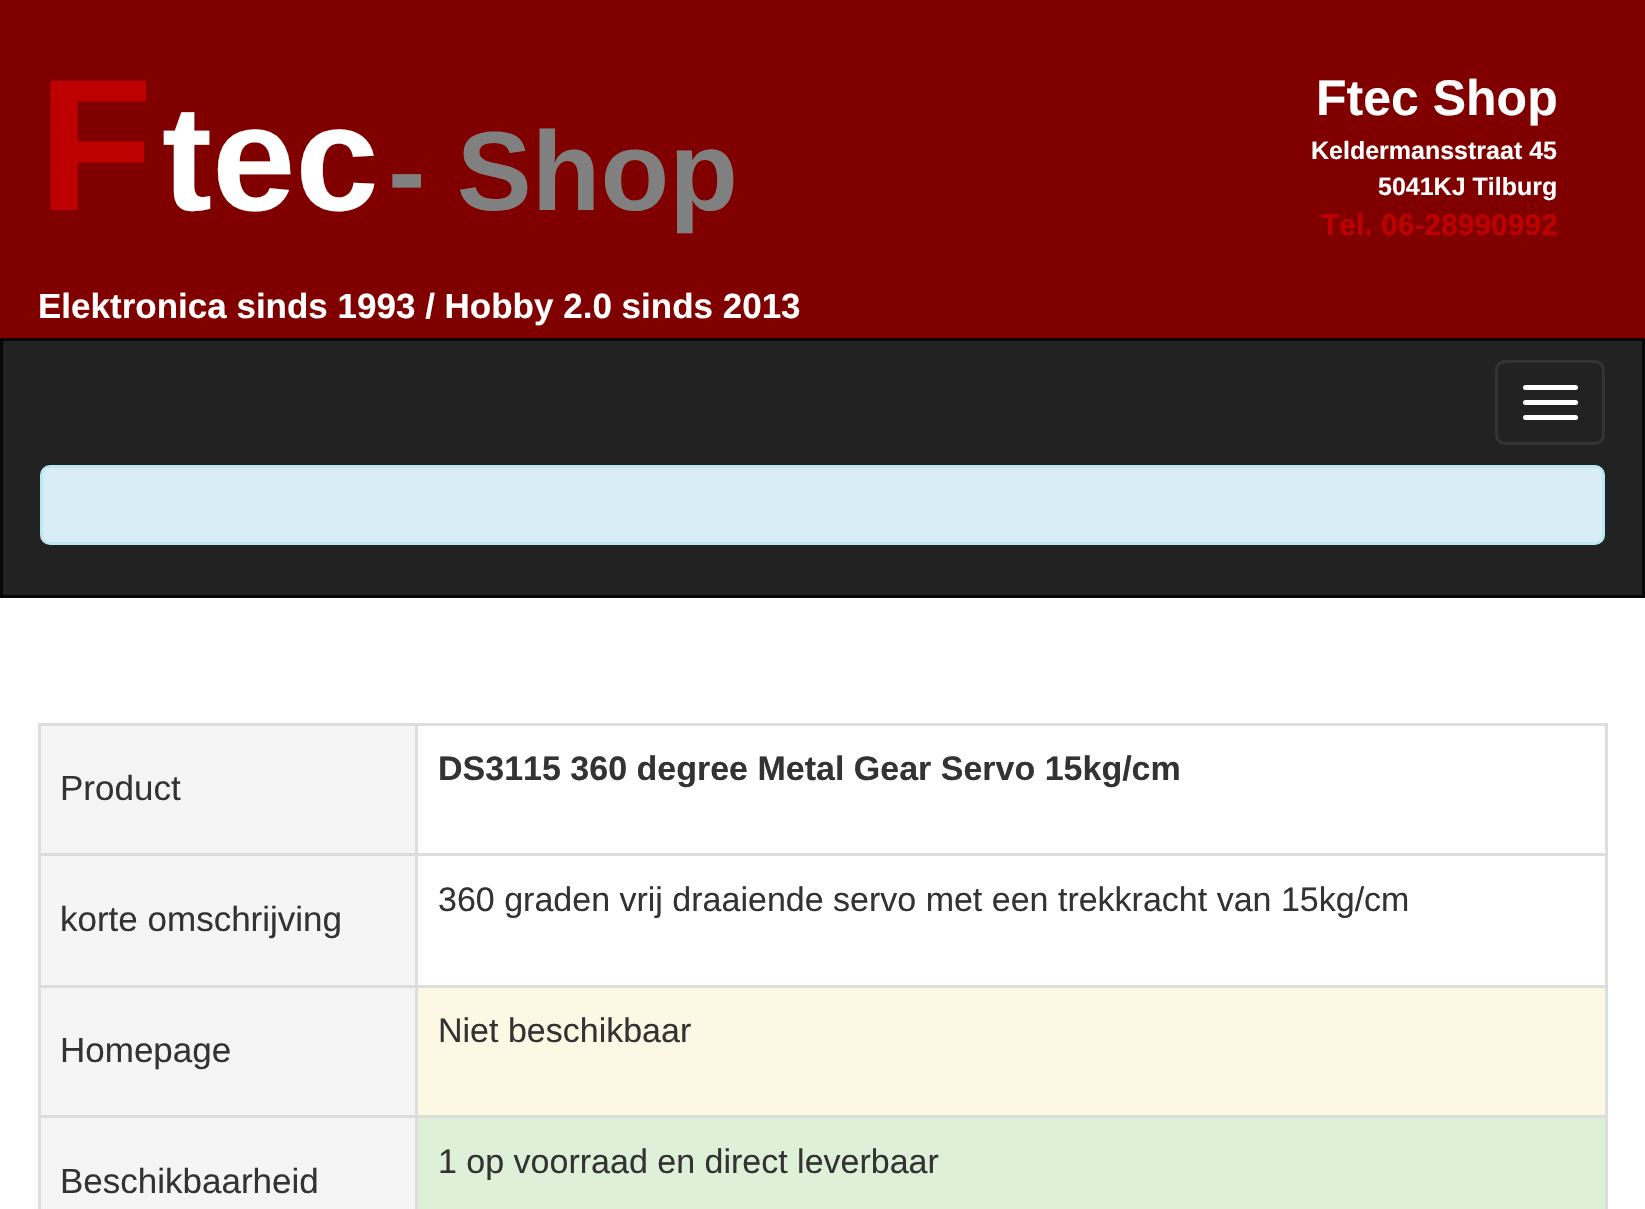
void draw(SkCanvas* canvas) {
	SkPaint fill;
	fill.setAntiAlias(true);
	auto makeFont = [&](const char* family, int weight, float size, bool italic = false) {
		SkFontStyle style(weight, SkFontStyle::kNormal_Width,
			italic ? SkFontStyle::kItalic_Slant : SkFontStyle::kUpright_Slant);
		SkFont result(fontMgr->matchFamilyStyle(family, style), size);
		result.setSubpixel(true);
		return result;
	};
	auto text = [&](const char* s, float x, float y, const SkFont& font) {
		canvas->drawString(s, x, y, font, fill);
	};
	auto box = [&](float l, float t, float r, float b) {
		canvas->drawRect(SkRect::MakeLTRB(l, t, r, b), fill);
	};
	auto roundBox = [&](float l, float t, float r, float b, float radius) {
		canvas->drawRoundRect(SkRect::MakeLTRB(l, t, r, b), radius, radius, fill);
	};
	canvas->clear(0xFFFFFFFF);
	fill.setColor(0xFF800000);
	box(0, 0, 1645, 338);
	fill.setColor(0xFF222222);
	canvas->drawRect(SkRect::MakeLTRB(1.5f, 339.5f, 1643.5f, 596.5f), fill);
	fill.setStyle(SkPaint::kStroke_Style);
	fill.setStrokeWidth(3);
	fill.setColor(0xFF080808);
	canvas->drawRect(SkRect::MakeLTRB(1.5f, 339.5f, 1643.5f, 596.5f), fill);
	fill.setColor(0xFF333333);
	canvas->drawRoundRect(SkRect::MakeLTRB(1496.5f, 361.5f, 1603.5f, 443.5f), 8.5f, 8.5f, fill);
	fill.setStyle(SkPaint::kFill_Style);
	fill.setColor(0xFFFFFFFF);
	roundBox(1523, 385, 1578, 390, 2.5f);
	roundBox(1523, 400, 1578, 405, 2.5f);
	roundBox(1523, 415, 1578, 420, 2.5f);
	fill.setColor(0xFFD9EDF7);
	canvas->drawRoundRect(SkRect::MakeLTRB(41.5f, 466.5f, 1603.5f, 543.5f), 8.5f, 8.5f, fill);
	fill.setStyle(SkPaint::kStroke_Style);
	fill.setColor(0xFFBCE8F1);
	canvas->drawRoundRect(SkRect::MakeLTRB(41.5f, 466.5f, 1603.5f, 543.5f), 8.5f, 8.5f, fill);
	fill.setStyle(SkPaint::kFill_Style);
	fill.setColor(0xFFDDDDDD);
	box(38, 723, 1608, 726);
	box(1605, 723, 1608, 1209);
	box(38, 723, 41, 1209);
	fill.setColor(0xFFF5F5F5);
	box(41, 726, 415, 853);
	fill.setColor(0xFFDDDDDD);
	box(415, 853, 1608, 856);
	box(415, 985, 1608, 988);
	box(415, 1115, 1608, 1118);
	box(415, 1115, 418, 1209);
	box(38, 1115, 418, 1118);
	box(415, 985, 418, 1118);
	box(38, 985, 418, 988);
	box(415, 853, 418, 988);
	box(38, 853, 418, 856);
	box(415, 723, 418, 855);
	fill.setColor(0xFFF5F5F5);
	box(41, 856, 415, 985);
	fill.setColor(0xFFFCF8E3);
	box(418, 988, 1605, 1115);
	fill.setColor(0xFFF5F5F5);
	box(41, 988, 415, 1115);
	box(41, 1118, 415, 1209);
	fill.setColor(0xFFDFF0D8);
	box(418, 1118, 1605, 1209);
	auto font1 = makeFont("Liberation Sans", 700, 188);
	fill.setColor(0xFFBF0000);
	text("F", 38, 210, font1);
	auto font2 = makeFont("Liberation Sans", 700, 150);
	fill.setColor(0xFFFFFFFF);
	text("tec", 162, 210, font2);
	auto font3 = makeFont("Liberation Sans", 700, 112.5f);
	fill.setColor(0xFF808080);
	text("- Shop", 388, 210, font3);
	auto font4 = makeFont("Liberation Sans", 700, 35);
	fill.setColor(0xFFFFFFFF);
	text("Elektronica sinds 1993 / Hobby 2.0 sinds 2013", 38, 318, font4);
	auto font5 = makeFont("Liberation Sans", 700, 50);
	text("Ftec Shop", 1316, 115, font5);
	auto font6 = makeFont("Liberation Sans", 700, 25);
	text("Keldermansstraat 45", 1311, 159, font6);
	text("5041KJ Tilburg", 1378, 195, font6);
	auto font7 = makeFont("Liberation Sans", 700, 30);
	fill.setColor(0xFFBF0000);
	text("Tel. 06-28990992", 1321, 235, font7);
	auto font8 = makeFont("Liberation Sans", 400, 35);
	fill.setColor(0xFF333333);
	text("Product", 60, 800, font8);
	auto font9 = makeFont("Liberation Sans", 700, 34);
	text("DS3115 360 degree Metal Gear Servo 15kg/cm", 438, 780, font9);
	text("korte omschrijving", 60, 931, font8);
	auto font10 = makeFont("Liberation Sans", 400, 34);
	text("360 graden vrij draaiende servo met een trekkracht van 15kg/cm", 438, 911, font10);
	text("Niet beschikbaar", 438, 1042, font10);
	text("Homepage", 60, 1062, font8);
	text("Beschikbaarheid", 60, 1193, font8);
	text("1 op voorraad en direct leverbaar", 438, 1173, font10);
}
